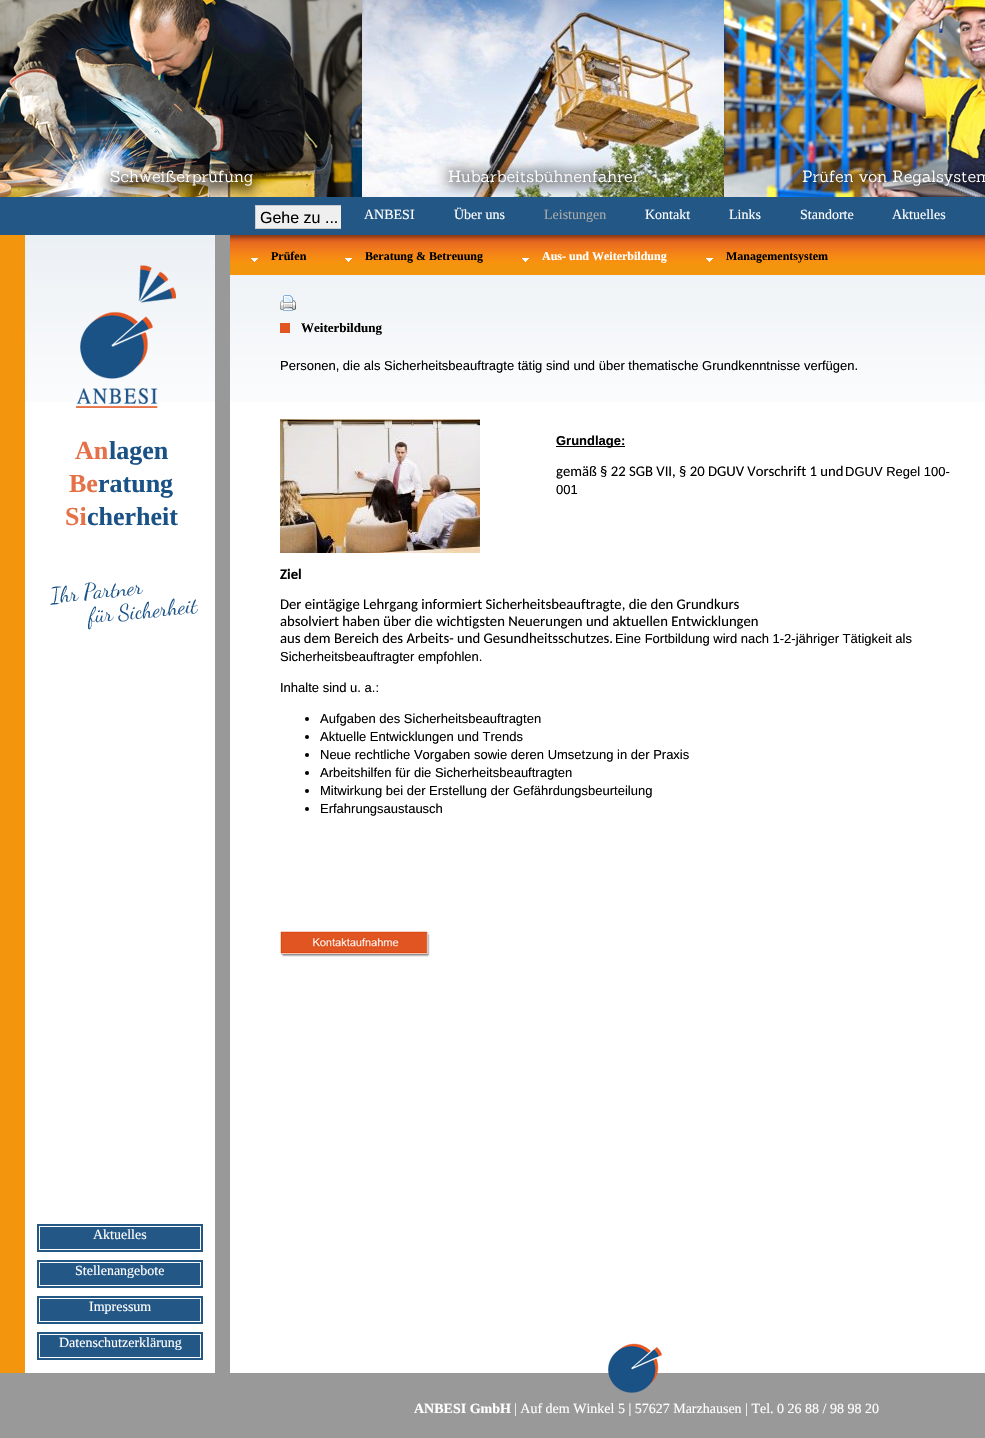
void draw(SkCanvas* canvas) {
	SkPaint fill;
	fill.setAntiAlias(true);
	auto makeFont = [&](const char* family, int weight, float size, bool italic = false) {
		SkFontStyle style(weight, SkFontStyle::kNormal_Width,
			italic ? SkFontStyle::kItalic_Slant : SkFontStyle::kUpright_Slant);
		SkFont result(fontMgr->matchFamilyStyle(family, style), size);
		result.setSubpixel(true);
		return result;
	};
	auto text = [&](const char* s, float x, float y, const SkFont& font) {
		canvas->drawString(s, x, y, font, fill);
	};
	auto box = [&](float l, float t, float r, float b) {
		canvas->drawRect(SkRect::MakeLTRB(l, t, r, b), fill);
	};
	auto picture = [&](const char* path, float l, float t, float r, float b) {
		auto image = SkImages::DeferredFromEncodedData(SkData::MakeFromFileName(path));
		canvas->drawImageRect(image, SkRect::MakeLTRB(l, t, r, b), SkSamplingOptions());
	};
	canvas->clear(0xFFFFFFFF);
	picture("image0.png", 25, 235, 985, 402);
	picture("image1.png", 0, 235, 230, 1373);
	fill.setColor(0xFF235786);
	box(0, 197, 985, 235);
	picture("image2.png", 0, 0, 362, 197);
	picture("image3.png", 362, 0, 724, 197);
	picture("image4.png", 724, 0, 985, 197);
	fill.setColor(0xFFF3950D);
	box(230, 264, 985, 275);
	picture("image5.png", 230, 235, 985, 264);
	picture("image6.png", 251, 258, 258, 262);
	picture("image6.png", 345, 258, 352, 262);
	picture("image6.png", 522, 258, 529, 262);
	picture("image6.png", 706, 258, 713, 262);
	fill.setColor(0xFFEFEFEF);
	box(256, 206, 341, 228);
	fill.setStyle(SkPaint::kStroke_Style);
	fill.setStrokeWidth(1);
	fill.setColor(0xFFCCCCCC);
	canvas->drawRect(SkRect::MakeLTRB(255.5f, 205.5f, 424.5f, 228.5f), fill);
	fill.setStyle(SkPaint::kFill_Style);
	fill.setColor(0xFF235786);
	box(343, 205, 425, 229);
	fill.setStyle(SkPaint::kStroke_Style);
	fill.setStrokeWidth(2);
	canvas->drawRect(SkRect::MakeLTRB(342, 198, 434, 232), fill);
	picture("image7.png", 76, 265, 176, 408);
	picture("image8.png", 50, 582, 198, 630);
	picture("image9.png", 280, 295, 296, 311);
	fill.setStyle(SkPaint::kFill_Style);
	fill.setColor(0xFFE05522);
	box(280, 323, 290, 333);
	picture("image10.png", 280, 419, 480, 553);
	fill.setColor(0xFF000000);
	box(556, 446, 625, 447);
	canvas->drawCircle(307, 719, 2, fill);
	canvas->drawCircle(307, 737, 2, fill);
	canvas->drawCircle(307, 755, 2, fill);
	canvas->drawCircle(307, 773, 2, fill);
	canvas->drawCircle(307, 791, 2, fill);
	canvas->drawCircle(307, 809, 2, fill);
	picture("image11.png", 280, 931, 430, 957);
	fill.setColor(0xFF999999);
	box(0, 1373, 985, 1438);
	fill.setColor(0xFF235786);
	box(40, 1227, 200, 1249);
	fill.setStyle(SkPaint::kStroke_Style);
	canvas->drawRect(SkRect::MakeLTRB(38, 1225, 202, 1251), fill);
	fill.setStyle(SkPaint::kFill_Style);
	box(40, 1263, 200, 1285);
	fill.setStyle(SkPaint::kStroke_Style);
	canvas->drawRect(SkRect::MakeLTRB(38, 1261, 202, 1287), fill);
	fill.setStyle(SkPaint::kFill_Style);
	box(40, 1299, 200, 1321);
	fill.setStyle(SkPaint::kStroke_Style);
	canvas->drawRect(SkRect::MakeLTRB(38, 1297, 202, 1323), fill);
	fill.setStyle(SkPaint::kFill_Style);
	box(40, 1335, 200, 1357);
	fill.setStyle(SkPaint::kStroke_Style);
	canvas->drawRect(SkRect::MakeLTRB(38, 1333, 202, 1359), fill);
	picture("image12.png", 608, 1343, 662, 1393);
	auto font1 = makeFont("Liberation Serif", 400, 14);
	fill.setStyle(SkPaint::kFill_Style);
	fill.setColor(0xFFFFFFFF);
	text("Über uns", 454, 219, font1);
	fill.setColor(0xFFAAAAAA);
	text("Leistungen", 544, 219, font1);
	auto font2 = makeFont("Liberation Serif", 700, 12);
	fill.setColor(0xFF000000);
	text("Prüfen", 271, 260, font2);
	text("Beratung & Betreuung", 365, 260, font2);
	fill.setColor(0xFFFFFFFF);
	text("Aus- und Weiterbildung", 542, 260, font2);
	fill.setColor(0xFF000000);
	text("Managementsystem", 726, 260, font2);
	fill.setColor(0xFFFFFFFF);
	text("ANBESI", 364, 219, font1);
	text("Kontakt", 645, 219, font1);
	text("Links", 729, 219, font1);
	text("Standorte", 800, 219, font1);
	text("Aktuelles", 892, 219, font1);
	auto font3 = makeFont("Liberation Sans", 400, 16);
	fill.setColor(0xFF000000);
	text("Gehe zu ...", 260, 223, font3);
	auto font4 = makeFont("Liberation Serif", 700, 26);
	fill.setColor(0xFFE47147);
	text("An", 75, 459, font4);
	fill.setColor(0xFF1B5286);
	text("lagen", 109, 459, font4);
	fill.setColor(0xFFE47147);
	text("Be", 69, 492, font4);
	fill.setColor(0xFF1B5286);
	text("ratung", 98, 492, font4);
	fill.setColor(0xFFE47147);
	text("Si", 65, 525, font4);
	fill.setColor(0xFF1B5286);
	text("cherheit", 87, 525, font4);
	auto font5 = makeFont("Liberation Serif", 700, 13);
	fill.setColor(0xFF000000);
	text("Weiterbildung", 301, 332, font5);
	auto font6 = makeFont("Liberation Sans", 400, 13);
	text("Personen, die als Sicherheitsbeauftragte tätig sind und über thematische Grundkenntnisse verfügen.", 280, 370, font6);
	auto font7 = makeFont("Liberation Sans", 700, 13);
	text("Grundlage:", 556, 445, font7);
	auto font8 = makeFont("Carlito", 400, 14.7f);
	text("gemäß § 22 SGB VII, § 20 DGUV Vorschrift 1 und", 556, 476, font8);
	text("DGUV Regel 100-", 845, 476, font6);
	text("001", 556, 494, font6);
	auto font9 = makeFont("Carlito", 700, 14.7f);
	text("Ziel", 280, 579, font9);
	text("Der eintägige Lehrgang informiert Sicherheitsbeauftragte, die den Grundkurs", 280, 609, font8);
	text("absolviert haben über die wichtigsten Neuerungen und aktuellen Entwicklungen", 280, 626, font8);
	text("aus dem Bereich des Arbeits- und Gesundheitsschutzes.", 280, 643, font8);
	text("Eine Fortbildung wird nach 1-2-jähriger Tätigkeit als", 615, 643, font6);
	text("Sicherheitsbeauftragter empfohlen.", 280, 661, font6);
	text("Inhalte sind u. a.:", 280, 692, font6);
	text("Aufgaben des Sicherheitsbeauftragten", 320, 723, font6);
	text("Aktuelle Entwicklungen und Trends", 320, 741, font6);
	text("Neue rechtliche Vorgaben sowie deren Umsetzung in der Praxis", 320, 759, font6);
	text("Arbeitshilfen für die Sicherheitsbeauftragten", 320, 777, font6);
	text("Mitwirkung bei der Erstellung der Gefährdungsbeurteilung", 320, 795, font6);
	text("Erfahrungsaustausch", 320, 813, font6);
	fill.setColor(0xFFFFFFFF);
	text("Aktuelles", 93, 1239, font1);
	text("Stellenangebote", 75, 1275, font1);
	text("Impressum", 89, 1311, font1);
	text("Datenschutzerklärung", 59, 1347, font1);
	auto font10 = makeFont("Liberation Serif", 700, 14);
	text("ANBESI GmbH", 414, 1413, font10);
	text("| Auf dem Winkel 5 | 57627 Marzhausen | Tel. 0 26 88 / 98 98 20", 514, 1413, font1);
}
